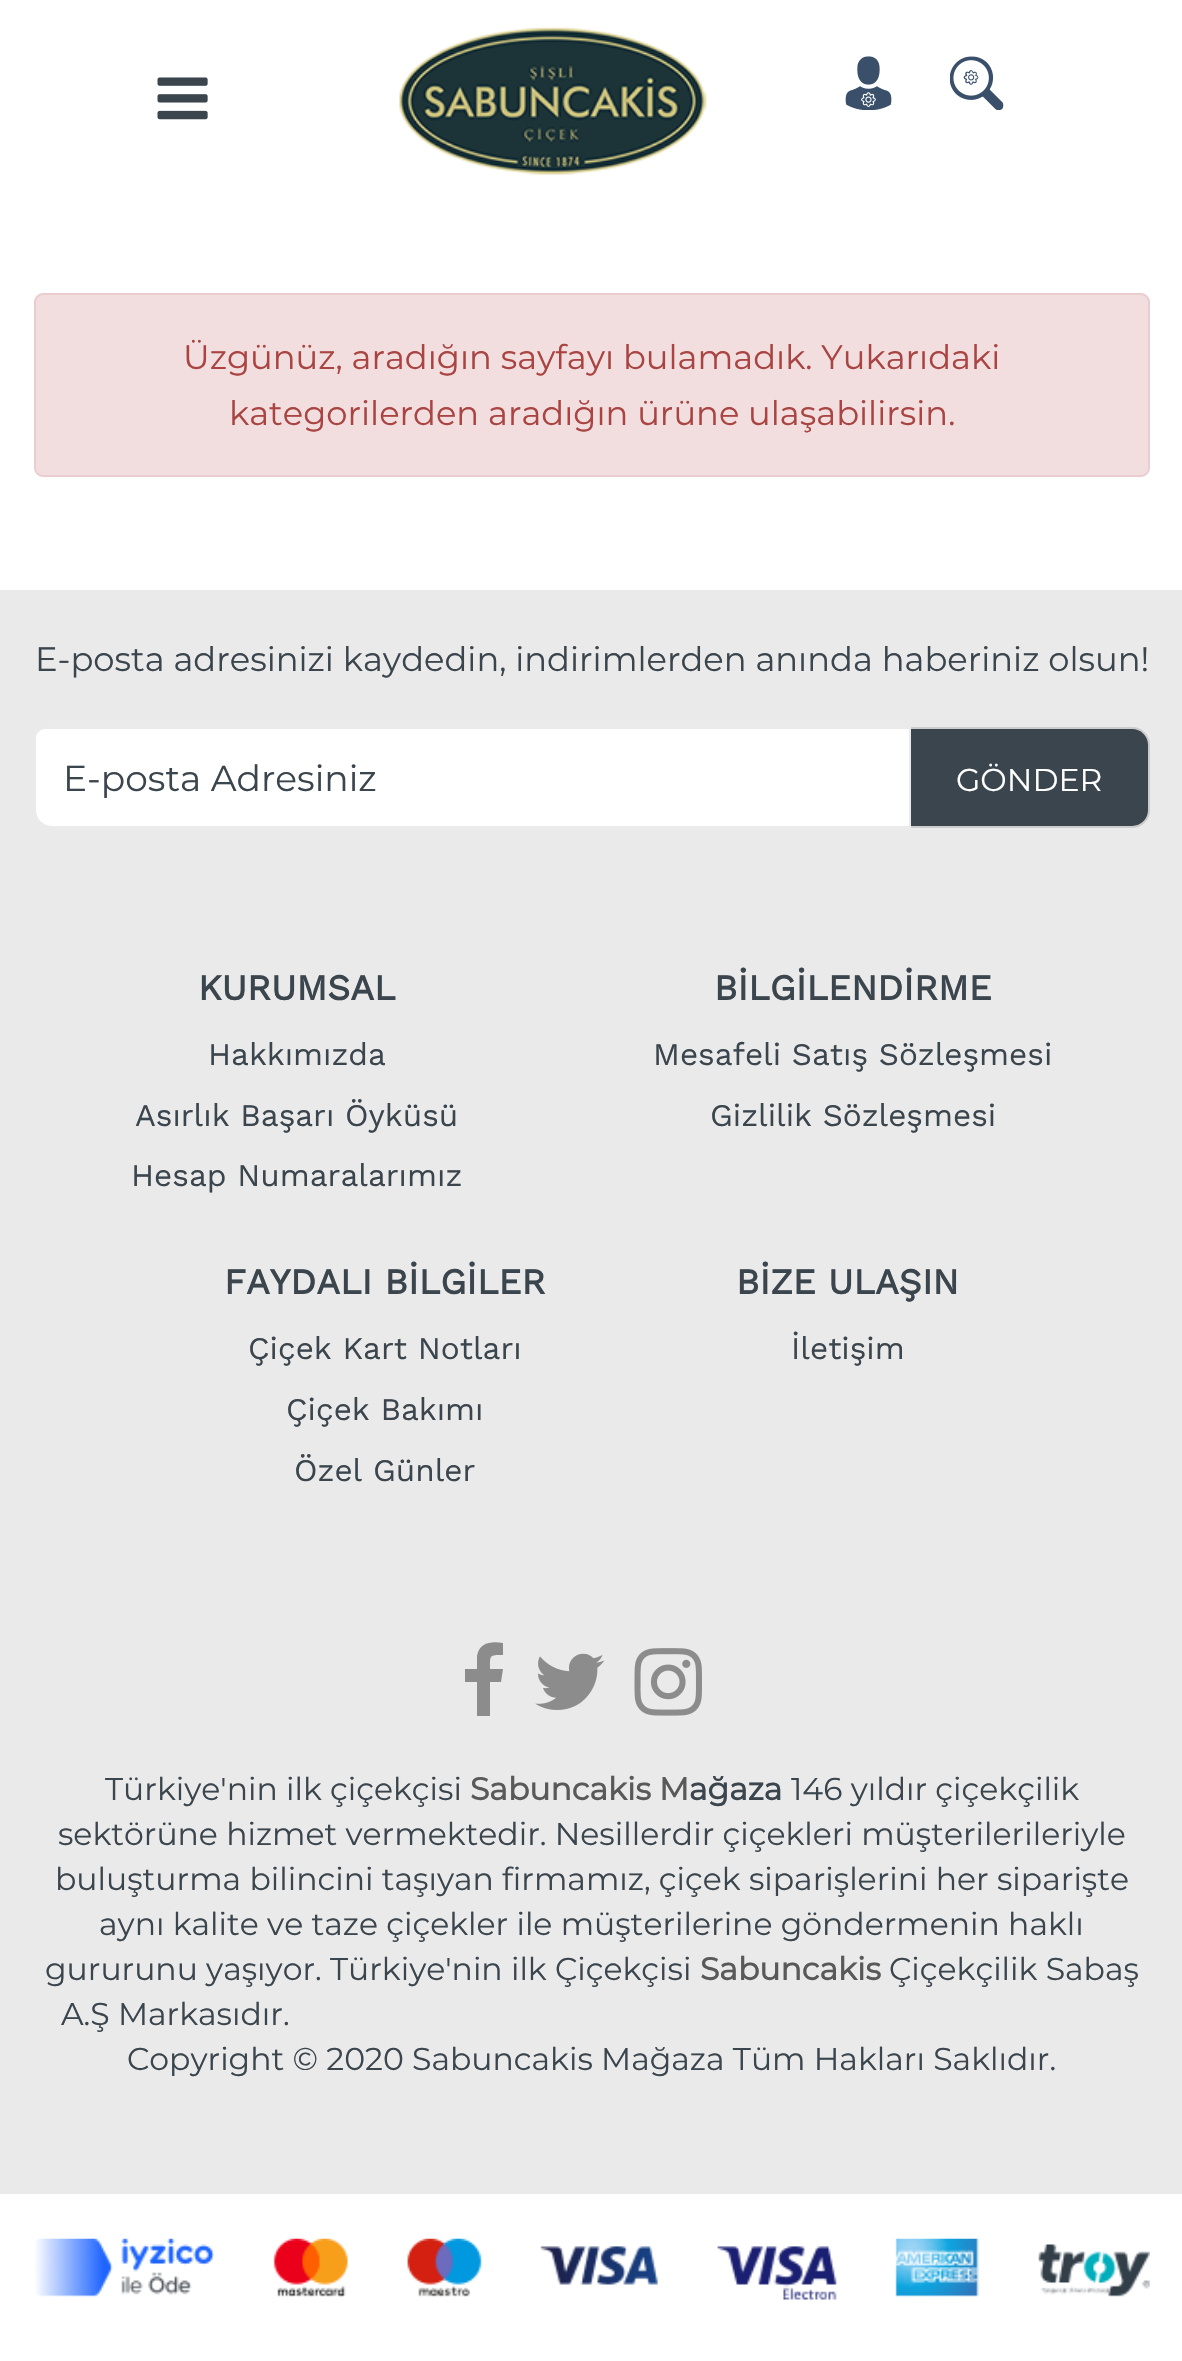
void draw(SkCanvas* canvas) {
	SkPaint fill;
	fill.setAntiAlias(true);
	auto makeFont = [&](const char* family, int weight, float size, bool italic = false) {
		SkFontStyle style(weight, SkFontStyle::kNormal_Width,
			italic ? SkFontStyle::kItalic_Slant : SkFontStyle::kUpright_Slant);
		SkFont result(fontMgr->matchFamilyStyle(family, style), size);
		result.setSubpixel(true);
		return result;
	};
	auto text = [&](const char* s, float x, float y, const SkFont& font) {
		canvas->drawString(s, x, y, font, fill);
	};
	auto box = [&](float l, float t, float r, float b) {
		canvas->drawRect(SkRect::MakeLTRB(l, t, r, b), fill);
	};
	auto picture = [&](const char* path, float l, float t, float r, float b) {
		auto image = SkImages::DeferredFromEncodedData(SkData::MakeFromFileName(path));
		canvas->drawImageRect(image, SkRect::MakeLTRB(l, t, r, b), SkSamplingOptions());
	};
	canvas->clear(0xFFFFFFFF);
	picture("image0.png", 157, 77, 208, 120);
	picture("image1.png", 399, 27, 707, 175);
	picture("image2.png", 845, 56, 892, 110);
	picture("image3.png", 950, 56, 1004, 110);
	fill.setColor(0xFFF2DEDE);
	canvas->drawRoundRect(SkRect::MakeLTRB(35, 294, 1149, 476), 8, 8, fill);
	fill.setStyle(SkPaint::kStroke_Style);
	fill.setStrokeWidth(2);
	fill.setColor(0xFFEBCCD1);
	canvas->drawRoundRect(SkRect::MakeLTRB(35, 294, 1149, 476), 8, 8, fill);
	fill.setStyle(SkPaint::kFill_Style);
	fill.setColor(0xFFEAEAEA);
	box(0, 590, 1182, 2194);
	fill.setColor(0xFF3B454D);
	canvas->drawPath(SkPathBuilder().moveTo(910, 728).lineTo(1132, 728).cubicTo(1141.5f, 728, 1149, 735.5f, 1149, 745).lineTo(1149, 810).cubicTo(1149, 819.5f, 1141.5f, 827, 1132, 827).lineTo(910, 827).close().detach(), fill);
	fill.setStyle(SkPaint::kStroke_Style);
	fill.setColor(0xFFCCCCCC);
	canvas->drawPath(SkPathBuilder().moveTo(910, 728).lineTo(1132, 728).cubicTo(1141.5f, 728, 1149, 735.5f, 1149, 745).lineTo(1149, 810).cubicTo(1149, 819.5f, 1141.5f, 827, 1132, 827).lineTo(910, 827).close().detach(), fill);
	fill.setStyle(SkPaint::kFill_Style);
	fill.setColor(0xFFFFFFFF);
	canvas->drawPath(SkPathBuilder().moveTo(45, 728).lineTo(910, 728).lineTo(910, 827).lineTo(52, 827).cubicTo(42.5f, 827, 35, 819.5f, 35, 810).lineTo(35, 738).cubicTo(35, 732.5f, 39.5f, 728, 45, 728).close().detach(), fill);
	fill.setStyle(SkPaint::kStroke_Style);
	fill.setColor(0xFFEBEBEB);
	canvas->drawPath(SkPathBuilder().moveTo(45, 728).lineTo(910, 728).lineTo(910, 827).lineTo(52, 827).cubicTo(42.5f, 827, 35, 819.5f, 35, 810).lineTo(35, 738).cubicTo(35, 732.5f, 39.5f, 728, 45, 728).close().detach(), fill);
	fill.setStyle(SkPaint::kFill_Style);
	fill.setColor(0xFF8C8C8C);
	canvas->drawPath(SkPathBuilder().moveTo(503, 1643).lineTo(503, 1655).cubicTo(489, 1655, 490, 1655, 490, 1669).lineTo(503, 1669).lineTo(501, 1682).lineTo(490, 1682).lineTo(490, 1716).lineTo(477, 1716).lineTo(477, 1682).lineTo(465, 1682).lineTo(465, 1669).lineTo(477, 1669).lineTo(477, 1656).cubicTo(479, 1642, 492, 1641, 503, 1643).close().detach(), fill);
	picture("image4.png", 535, 1653, 605, 1710);
	picture("image5.png", 634, 1648, 702, 1716);
	picture("image6.png", 35, 2238, 1150, 2300);
	auto font1 = makeFont("Montserrat", 100, 33.75f);
	fill.setColor(0xFFA94442);
	text("Üzgünüz, aradığın sayfayı bulamadık. Yukarıdaki", 183, 369, font1);
	text("kategorilerden aradığın ürüne ulaşabilirsin.", 229, 425, font1);
	fill.setColor(0xFF3B454D);
	text("E-posta adresinizi kaydedin, indirimlerden anında haberiniz olsun!", 35, 671, font1);
	auto font2 = makeFont("Montserrat", 100, 36);
	text("E-posta Adresiniz", 63, 791, font2);
	auto font3 = makeFont("Montserrat", 100, 31.5f);
	fill.setColor(0xFFFFFFFF);
	text("GÖNDER", 956, 791, font3);
	auto font4 = makeFont("Work Sans", 700, 36);
	fill.setColor(0xFF3B454D);
	text("KURUMSAL", 198, 1000, font4);
	auto font5 = makeFont("Work Sans", 400, 31.5f);
	text("Hakkımızda", 208, 1065, font5);
	text("Asırlık Başarı Öyküsü", 135, 1126, font5);
	text("Hesap Numaralarımız", 131, 1186, font5);
	text("BİLGİLENDİRME", 714, 1000, font4);
	text("Mesafeli Satış Sözleşmesi", 653, 1065, font5);
	text("Gizlilik Sözleşmesi", 710, 1126, font5);
	text("FAYDALI BİLGİLER", 224, 1294, font4);
	text("Çiçek Kart Notları", 248, 1359, font5);
	text("Çiçek Bakımı", 286, 1420, font5);
	text("Özel Günler", 294, 1481, font5);
	text("BİZE ULAŞIN", 736, 1294, font4);
	text("İletişim", 791, 1359, font5);
	text("Türkiye'nin ilk çiçekçisi", 105, 1800, font3);
	auto font6 = makeFont("Montserrat", 700, 31.5f);
	fill.setColor(0xFF595959);
	text("Sabuncakis M", 470, 1800, font6);
	fill.setColor(0xFF3B454D);
	text("ağaza", 689, 1800, font6);
	text("146 yıldır çiçekçilik", 791, 1800, font3);
	text("sektörüne hizmet vermektedir. Nesillerdir çiçekleri müşterilerileriyle", 58, 1845, font3);
	text("buluşturma bilincini taşıyan firmamız, çiçek siparişlerini her siparişte", 55, 1890, font3);
	text("aynı kalite ve taze çiçekler ile müşterilerine göndermenin haklı", 99, 1935, font3);
	text("gururunu yaşıyor. Türkiye'nin ilk Çiçekçisi", 45, 1980, font3);
	fill.setColor(0xFF595959);
	text("Sabuncakis", 700, 1980, font6);
	fill.setColor(0xFF3B454D);
	text("Çiçekçilik Sabaş", 889, 1980, font3);
	text("A.Ş Markasıdır.", 61, 2025, font3);
	text("Copyright © 2020 Sabuncakis Mağaza Tüm Hakları Saklıdır.", 127, 2070, font3);
}
